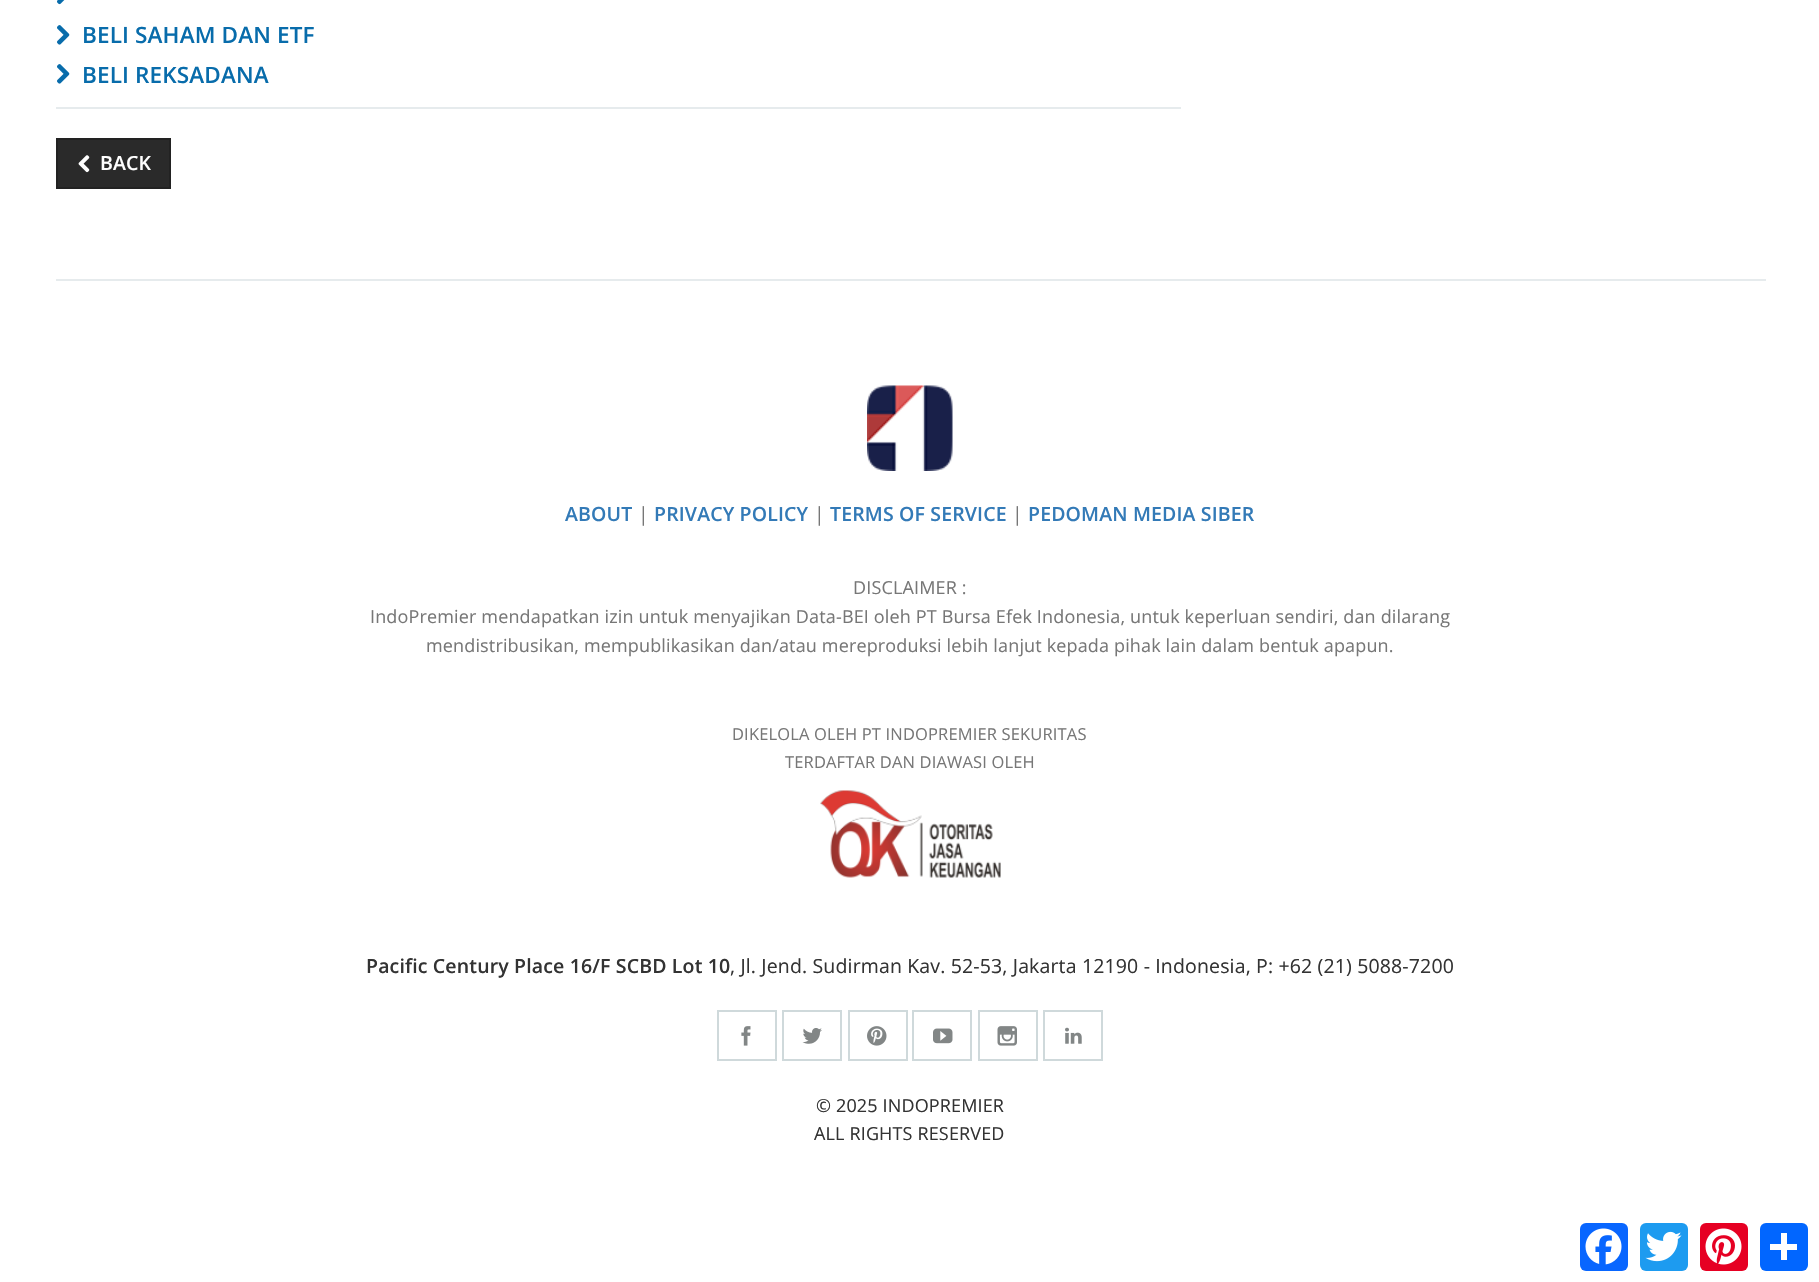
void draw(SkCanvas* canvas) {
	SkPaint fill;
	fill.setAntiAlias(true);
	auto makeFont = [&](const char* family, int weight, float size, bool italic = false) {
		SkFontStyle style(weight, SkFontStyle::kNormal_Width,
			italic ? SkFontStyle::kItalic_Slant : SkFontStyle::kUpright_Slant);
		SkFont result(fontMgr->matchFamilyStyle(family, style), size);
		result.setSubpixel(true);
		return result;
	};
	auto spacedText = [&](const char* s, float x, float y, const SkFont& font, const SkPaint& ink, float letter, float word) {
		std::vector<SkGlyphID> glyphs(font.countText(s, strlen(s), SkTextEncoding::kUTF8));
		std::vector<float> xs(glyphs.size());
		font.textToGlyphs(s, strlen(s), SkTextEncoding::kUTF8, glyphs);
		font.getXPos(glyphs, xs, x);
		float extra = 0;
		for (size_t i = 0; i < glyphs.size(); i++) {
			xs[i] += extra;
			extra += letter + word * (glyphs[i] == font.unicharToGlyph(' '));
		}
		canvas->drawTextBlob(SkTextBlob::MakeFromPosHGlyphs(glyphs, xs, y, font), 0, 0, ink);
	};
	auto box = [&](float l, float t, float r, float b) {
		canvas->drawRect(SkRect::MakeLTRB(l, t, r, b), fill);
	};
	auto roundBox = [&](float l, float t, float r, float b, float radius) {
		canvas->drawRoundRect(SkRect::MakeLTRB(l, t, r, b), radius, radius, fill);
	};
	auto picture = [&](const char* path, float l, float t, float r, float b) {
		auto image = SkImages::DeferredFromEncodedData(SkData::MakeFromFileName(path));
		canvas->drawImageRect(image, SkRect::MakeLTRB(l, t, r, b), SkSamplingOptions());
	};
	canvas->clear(0xFFFFFFFF);
	picture("image0.png", 57, 0, 65, 5);
	picture("image1.png", 57, 25, 70, 45);
	picture("image1.png", 57, 64, 70, 84);
	fill.setColor(0xFFE6EBED);
	box(56, 107, 1181, 109);
	fill.setColor(0xFF2A2A2A);
	canvas->drawRect(SkRect::MakeLTRB(57, 139, 170, 188), fill);
	fill.setStyle(SkPaint::kStroke_Style);
	fill.setStrokeWidth(2);
	fill.setColor(0xFF222222);
	canvas->drawRect(SkRect::MakeLTRB(57, 139, 170, 188), fill);
	picture("image2.png", 78, 155, 90, 173);
	fill.setStyle(SkPaint::kFill_Style);
	fill.setColor(0xFF0866FF);
	roundBox(1580, 1223, 1628, 1271, 6);
	picture("image3.png", 1585, 1228, 1622, 1265);
	fill.setColor(0xFF1D9BF0);
	roundBox(1640, 1223, 1688, 1271, 6);
	picture("image4.png", 1645, 1231, 1682, 1262);
	fill.setColor(0xFFE60023);
	roundBox(1700, 1223, 1748, 1271, 6);
	picture("image5.png", 1705, 1228, 1742, 1265);
	fill.setColor(0xFF0166FF);
	roundBox(1760, 1223, 1808, 1271, 6);
	fill.setColor(0xFFFFFFFF);
	box(1781, 1233, 1787, 1260);
	box(1770, 1244, 1797, 1250);
	fill.setColor(0xFFE6EBED);
	box(56, 279, 1766, 281);
	picture("image6.png", 867, 385, 953, 471);
	picture("image7.png", 820, 790, 1001, 878);
	fill.setStyle(SkPaint::kStroke_Style);
	fill.setColor(0xFFCFD9DB);
	canvas->drawRect(SkRect::MakeLTRB(718, 1011, 776, 1060), fill);
	picture("image8.png", 741, 1026, 751, 1046);
	canvas->drawRect(SkRect::MakeLTRB(783, 1011, 841, 1060), fill);
	picture("image9.png", 802, 1028, 822, 1044);
	canvas->drawRect(SkRect::MakeLTRB(849, 1011, 907, 1060), fill);
	picture("image10.png", 867, 1026, 887, 1046);
	canvas->drawRect(SkRect::MakeLTRB(913, 1011, 971, 1060), fill);
	picture("image11.png", 933, 1028, 953, 1044);
	canvas->drawRect(SkRect::MakeLTRB(979, 1011, 1037, 1060), fill);
	picture("image12.png", 997, 1026, 1017, 1046);
	canvas->drawRect(SkRect::MakeLTRB(1044, 1011, 1102, 1060), fill);
	picture("image13.png", 1065, 1027, 1082, 1044);
	auto font1 = makeFont("Open Sans", 600, 22.5f);
	fill.setStyle(SkPaint::kFill_Style);
	fill.setColor(0xFF086CAB);
	spacedText("BELI SAHAM DAN ETF", 82, 43, font1, fill, 0.15f, 0);
	spacedText("BELI REKSADANA", 82, 83, font1, fill, 0.15f, 0);
	auto font2 = makeFont("Open Sans", 600, 19.5f);
	fill.setColor(0xFFFFFFFF);
	spacedText("BACK", 100, 170, font2, fill, 0.15f, 0);
	fill.setColor(0xFF337AB7);
	spacedText("ABOUT", 565, 521, font2, fill, 0.15f, 0);
	auto font3 = makeFont("Open Sans", 400, 19.5f);
	fill.setColor(0xFF777777);
	spacedText("|", 638, 521, font3, fill, 0.15f, 0);
	fill.setColor(0xFF337AB7);
	spacedText("PRIVACY POLICY", 654, 521, font2, fill, 0.15f, 0);
	fill.setColor(0xFF777777);
	spacedText("|", 814, 521, font3, fill, 0.15f, 0);
	fill.setColor(0xFF337AB7);
	spacedText("TERMS OF SERVICE", 830, 521, font2, fill, 0.15f, 0);
	fill.setColor(0xFF777777);
	spacedText("|", 1012, 521, font3, fill, 0.15f, 0);
	fill.setColor(0xFF337AB7);
	spacedText("PEDOMAN MEDIA SIBER", 1028, 521, font2, fill, 0.15f, 0);
	auto font4 = makeFont("Open Sans", 400, 18);
	fill.setColor(0xFF777777);
	spacedText("DISCLAIMER :", 853, 594, font4, fill, 0.15f, 0);
	spacedText("IndoPremier mendapatkan izin untuk menyajikan Data-BEI oleh PT Bursa Efek Indonesia, untuk keperluan sendiri, dan dilarang", 370, 623, font4, fill, 0.15f, 0);
	spacedText("mendistribusikan, mempublikasikan dan/atau mereproduksi lebih lanjut kepada pihak lain dalam bentuk apapun.", 426, 652, font4, fill, 0.15f, 0);
	auto font5 = makeFont("Open Sans", 400, 16.5f);
	spacedText("DIKELOLA OLEH PT INDOPREMIER SEKURITAS", 732, 740, font5, fill, 0.15f, 0);
	spacedText("TERDAFTAR DAN DIAWASI OLEH", 785, 768, font5, fill, 0.15f, 0);
	fill.setColor(0xFF333333);
	spacedText("Pacific Century Place 16/F SCBD Lot 10", 366, 973, font2, fill, 0.15f, 0);
	spacedText(", Jl. Jend. Sudirman Kav. 52-53, Jakarta 12190 - Indonesia, P: +62 (21) 5088-7200", 730, 973, font3, fill, 0.15f, 0);
	spacedText("© 2025 INDOPREMIER", 816, 1112, font4, fill, 0.15f, 0);
	spacedText("ALL RIGHTS RESERVED", 814, 1140, font4, fill, 0.15f, 0);
}
